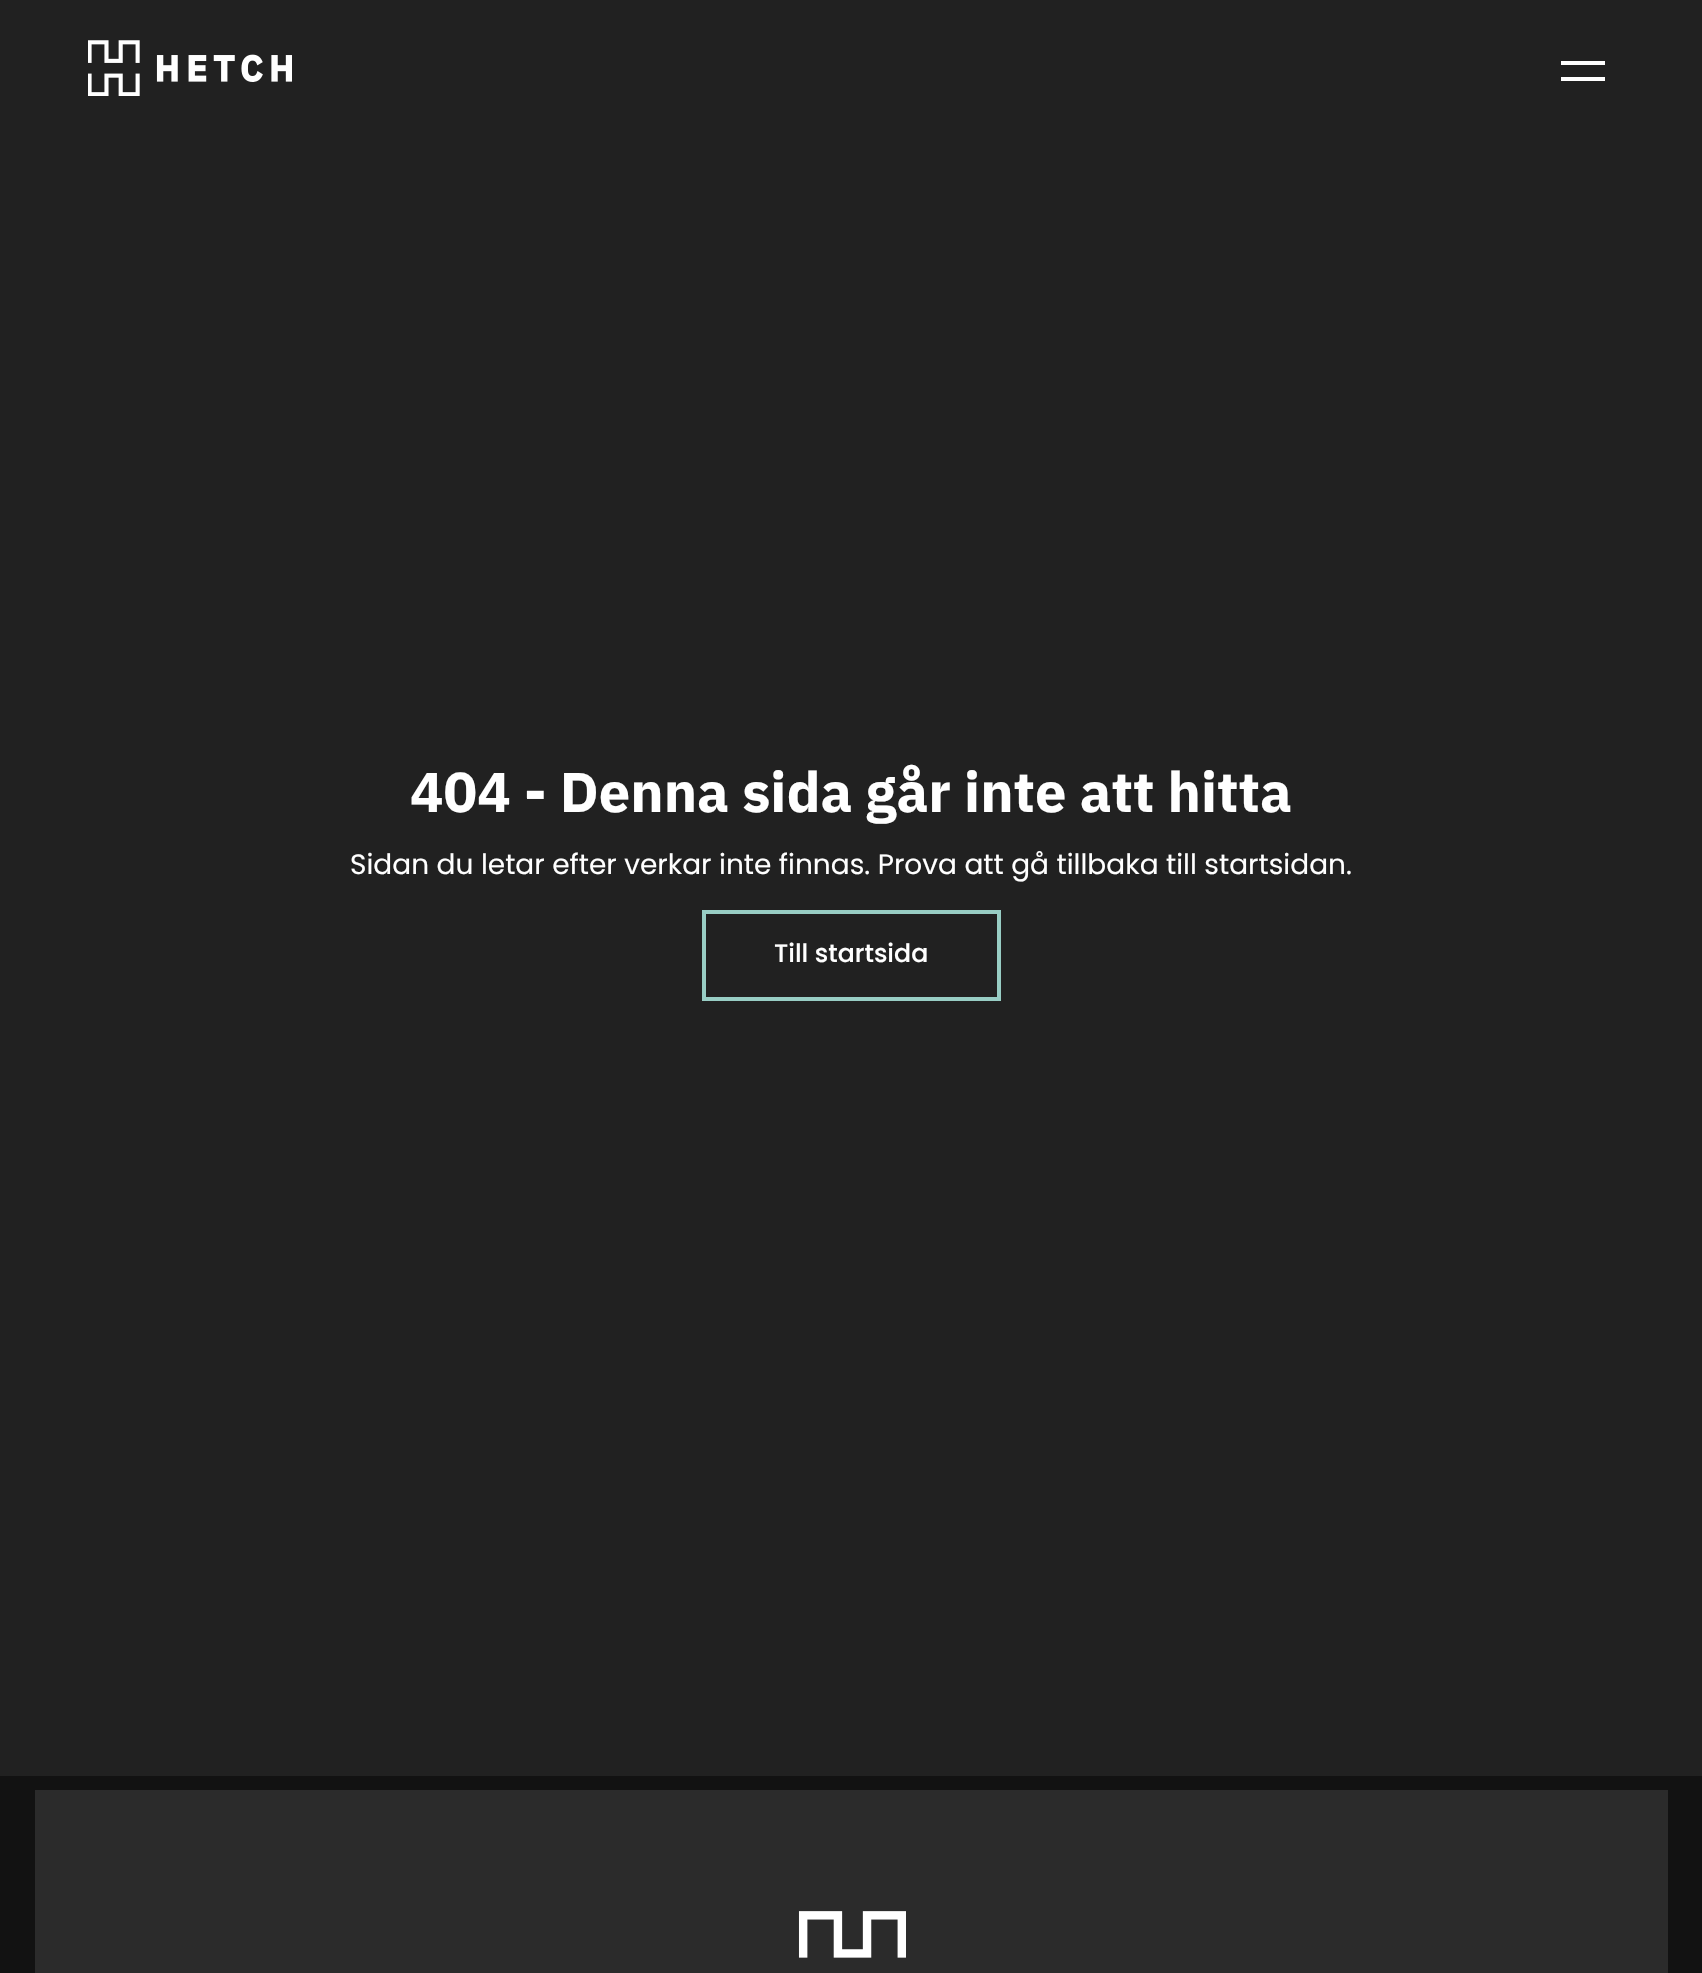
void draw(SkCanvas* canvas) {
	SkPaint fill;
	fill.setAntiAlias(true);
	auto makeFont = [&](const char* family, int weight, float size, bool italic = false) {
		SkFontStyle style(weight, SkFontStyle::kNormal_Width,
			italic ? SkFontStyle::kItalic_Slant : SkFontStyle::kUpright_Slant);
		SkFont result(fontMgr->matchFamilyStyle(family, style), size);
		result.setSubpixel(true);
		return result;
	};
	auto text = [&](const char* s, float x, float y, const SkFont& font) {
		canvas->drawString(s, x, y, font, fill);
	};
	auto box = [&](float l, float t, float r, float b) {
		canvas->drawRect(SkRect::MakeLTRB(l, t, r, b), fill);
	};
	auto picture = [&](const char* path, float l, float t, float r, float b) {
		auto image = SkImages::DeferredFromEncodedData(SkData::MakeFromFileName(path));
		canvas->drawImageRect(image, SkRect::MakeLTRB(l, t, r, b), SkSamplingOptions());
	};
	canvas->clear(0xFF121212);
	fill.setColor(0xFF212121);
	box(0, 0, 1702, 1776);
	picture("image0.png", 88, 40, 292, 96);
	fill.setColor(0xFFFFFFFF);
	box(1561, 61, 1605, 65);
	box(1561, 77, 1605, 81);
	fill.setStyle(SkPaint::kStroke_Style);
	fill.setStrokeWidth(4);
	fill.setColor(0xFF98CDC4);
	canvas->drawRect(SkRect::MakeLTRB(704, 912, 999, 999), fill);
	fill.setStyle(SkPaint::kFill_Style);
	fill.setColor(0xFF2B2B2B);
	box(35, 1790, 1668, 1973);
	picture("image1.png", 798, 1911, 906, 1958);
	auto font1 = makeFont("IBM Plex Sans", 700, 56);
	fill.setColor(0xFFFFFFFF);
	text("404 - Denna sida går inte att hitta", 410, 812, font1);
	auto font2 = makeFont("Poppins", 400, 28);
	text("Sidan du letar efter verkar inte finnas. Prova att gå tillbaka till startsidan.", 350, 874, font2);
	auto font3 = makeFont("Poppins", 500, 25.25f);
	text("Till startsida", 774, 962, font3);
}
